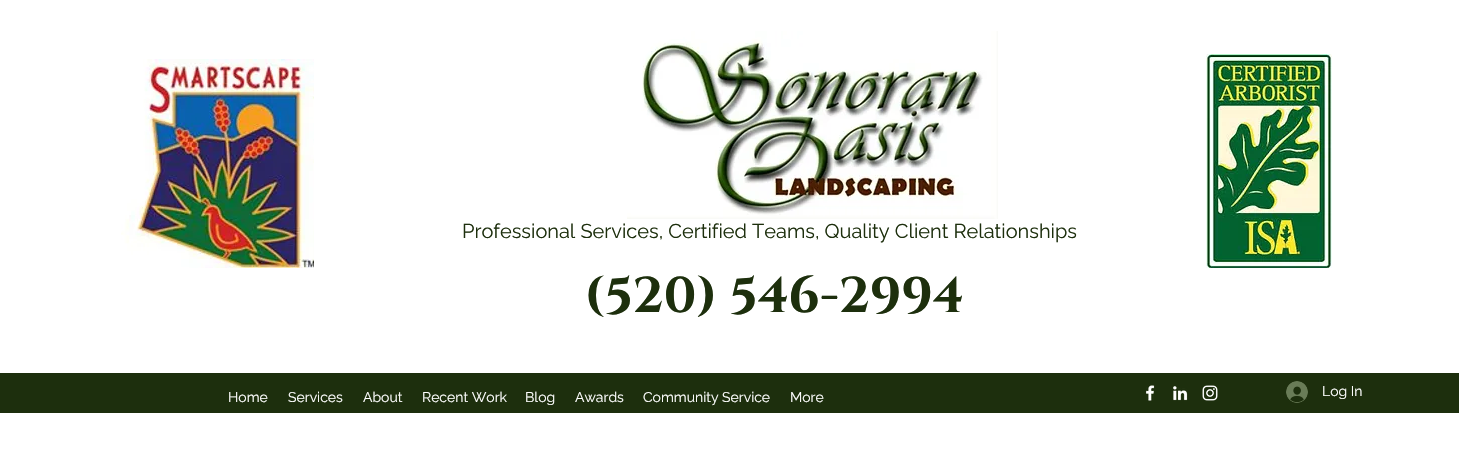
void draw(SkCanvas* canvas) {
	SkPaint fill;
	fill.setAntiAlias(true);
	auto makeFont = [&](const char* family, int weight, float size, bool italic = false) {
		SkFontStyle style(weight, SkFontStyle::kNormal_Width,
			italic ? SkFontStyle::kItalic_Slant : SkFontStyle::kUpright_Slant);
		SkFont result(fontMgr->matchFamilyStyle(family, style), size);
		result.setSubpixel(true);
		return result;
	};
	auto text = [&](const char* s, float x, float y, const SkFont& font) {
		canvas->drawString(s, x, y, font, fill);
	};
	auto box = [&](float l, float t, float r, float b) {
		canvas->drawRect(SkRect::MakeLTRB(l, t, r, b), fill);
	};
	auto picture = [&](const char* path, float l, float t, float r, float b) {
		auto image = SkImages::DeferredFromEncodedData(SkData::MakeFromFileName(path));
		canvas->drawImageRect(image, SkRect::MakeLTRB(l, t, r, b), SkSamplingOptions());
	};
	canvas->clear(0xFFFFFFFF);
	picture("image0.png", 121, 59, 314, 268);
	picture("image1.png", 627, 31, 998, 219);
	picture("image2.png", 1206, 54, 1332, 268);
	fill.setColor(0xFF1D2F0D);
	box(0, 373, 1459, 413);
	picture("image3.png", 1146, 385, 1155, 401);
	picture("image4.png", 1173, 386, 1188, 401);
	picture("image5.png", 1202, 385, 1218, 401);
	picture("image6.png", 1286, 381, 1308, 403);
	auto font1 = makeFont("Raleway", 400, 20);
	text("Professional Services, Certified Teams, Quality Client Relationships", 462, 238, font1);
	auto font2 = makeFont("Cinzel", 700, 50);
	text("(520) 546-2994", 584, 312, font2);
	auto font3 = makeFont("Raleway", 400, 14);
	fill.setColor(0xFFFFFFFF);
	text("Home", 228, 402, font3);
	text("Services", 288, 402, font3);
	text("About", 363, 402, font3);
	text("Recent Work", 422, 402, font3);
	text("Blog", 525, 402, font3);
	text("Awards", 575, 402, font3);
	text("Community Service", 643, 402, font3);
	text("More", 790, 402, font3);
	text("Log In", 1322, 396, font3);
}
